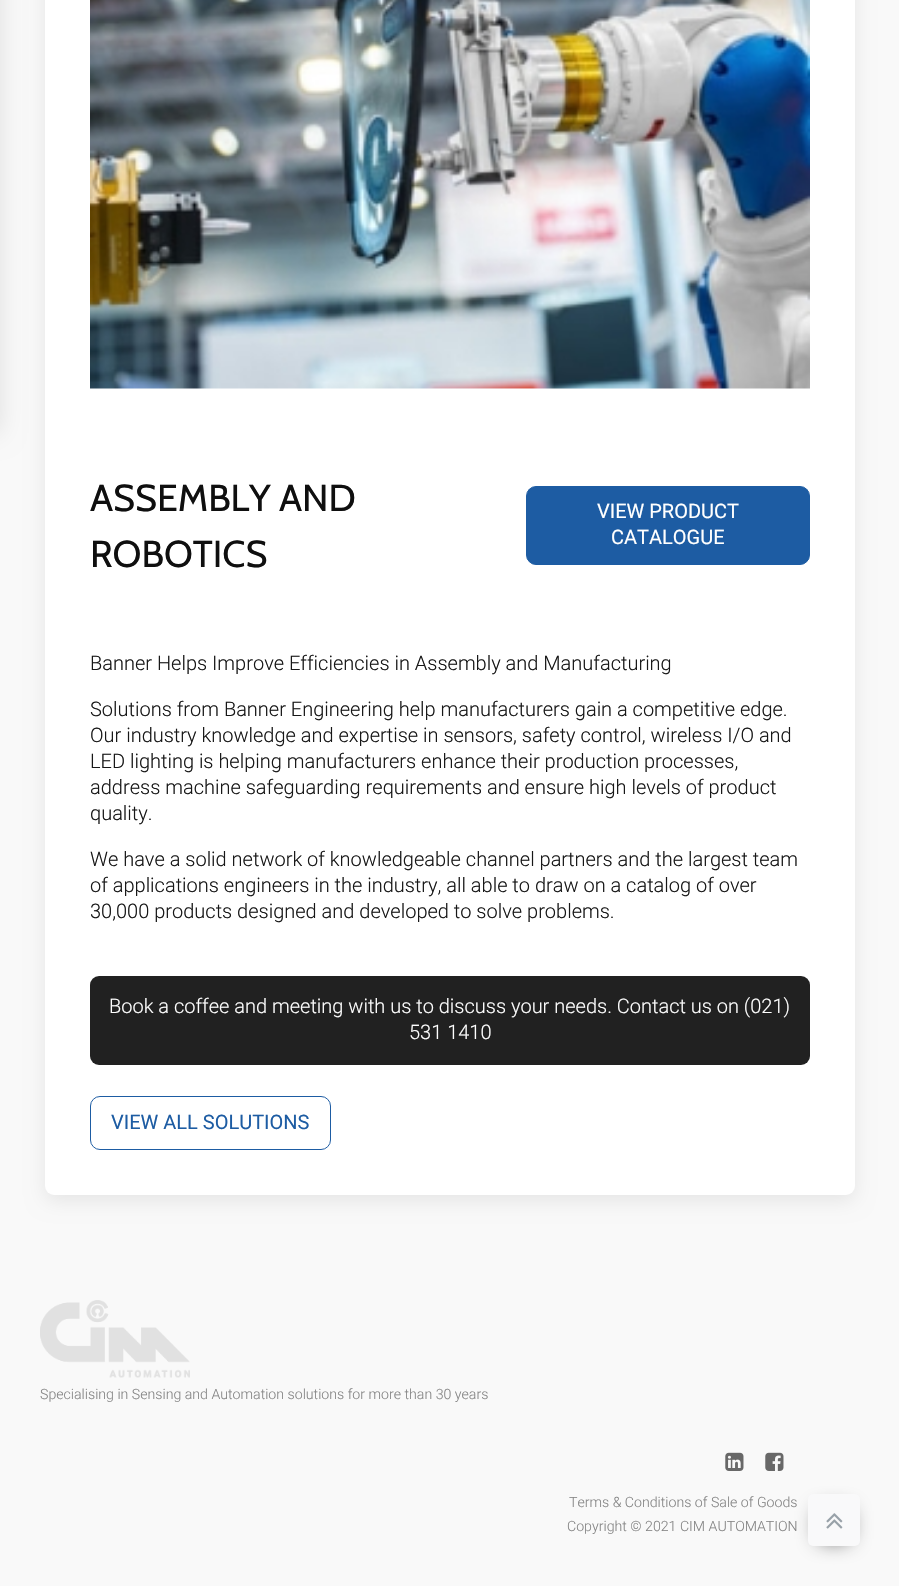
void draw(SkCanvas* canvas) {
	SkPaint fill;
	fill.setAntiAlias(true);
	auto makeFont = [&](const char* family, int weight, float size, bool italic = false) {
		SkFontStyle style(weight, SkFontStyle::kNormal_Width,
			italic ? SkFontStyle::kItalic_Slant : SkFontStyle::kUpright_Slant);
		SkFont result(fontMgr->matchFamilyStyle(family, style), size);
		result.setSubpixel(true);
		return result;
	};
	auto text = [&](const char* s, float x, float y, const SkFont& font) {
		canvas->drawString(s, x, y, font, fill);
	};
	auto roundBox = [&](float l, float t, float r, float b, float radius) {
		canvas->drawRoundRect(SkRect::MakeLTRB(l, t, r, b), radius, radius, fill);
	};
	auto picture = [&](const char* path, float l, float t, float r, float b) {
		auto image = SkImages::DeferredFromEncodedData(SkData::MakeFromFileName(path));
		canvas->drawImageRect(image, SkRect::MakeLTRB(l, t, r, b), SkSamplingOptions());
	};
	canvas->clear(0xFFF9F9F9);
	fill.setColor(0x1A000000);
	fill.setMaskFilter(SkMaskFilter::MakeBlur(kNormal_SkBlurStyle, 12.5f));
	canvas->drawRect(SkRect::MakeLTRB(-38, -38, 0, 433), fill);
	fill.setMaskFilter(nullptr);
	fill.setColor(0x14000000);
	fill.setMaskFilter(SkMaskFilter::MakeBlur(kNormal_SkBlurStyle, 9.5f));
	canvas->drawRoundRect(SkRect::MakeLTRB(45, -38, 855, 1201), 9, 9, fill);
	fill.setMaskFilter(nullptr);
	fill.setColor(0xFFFFFFFF);
	roundBox(45, -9, 855, 1195, 9);
	picture("image0.png", 90, 0, 810, 389);
	fill.setColor(0xFF1D5CA3);
	canvas->drawRoundRect(SkRect::MakeLTRB(526.5f, 486.5f, 809.5f, 564.5f), 9.5f, 9.5f, fill);
	fill.setStyle(SkPaint::kStroke_Style);
	fill.setStrokeWidth(1);
	canvas->drawRoundRect(SkRect::MakeLTRB(526.5f, 486.5f, 809.5f, 564.5f), 9.5f, 9.5f, fill);
	fill.setStyle(SkPaint::kFill_Style);
	fill.setColor(0xFF212121);
	roundBox(90, 976, 810, 1065, 9);
	fill.setStyle(SkPaint::kStroke_Style);
	fill.setColor(0xFF1D5CA3);
	canvas->drawRoundRect(SkRect::MakeLTRB(90.5f, 1096.5f, 330.5f, 1149.5f), 9.5f, 9.5f, fill);
	picture("image1.png", 40, 1300, 190, 1378);
	picture("image2.png", 725, 1452, 744, 1471);
	picture("image3.png", 765, 1452, 784, 1471);
	fill.setStyle(SkPaint::kFill_Style);
	fill.setColor(0xFF1E1E1E);
	fill.setMaskFilter(SkMaskFilter::MakeBlur(kNormal_SkBlurStyle, 10.5f));
	canvas->drawRect(SkRect::MakeLTRB(820, 1511, 848, 1539), fill);
	fill.setMaskFilter(nullptr);
	fill.setColor(0xFFF9F9FA);
	roundBox(808, 1494, 860, 1546, 5);
	picture("image4.png", 826, 1513, 843, 1529);
	auto font1 = makeFont("Cabin", 400, 37.5f);
	fill.setColor(0xFF0F0F0F);
	text("ASSEMBLY AND", 90, 511, font1);
	text("ROBOTICS", 90, 567, font1);
	auto font2 = makeFont("Roboto", 400, 20);
	fill.setColor(0xFFFFFFFF);
	text("VIEW PRODUCT", 597, 518, font2);
	text("CATALOGUE", 611, 544, font2);
	auto font3 = makeFont("Roboto", 300, 20);
	fill.setColor(0xFF171717);
	text("Banner Helps Improve Efficiencies in Assembly and Manufacturing", 90, 670, font3);
	text("Solutions from Banner Engineering help manufacturers gain a competitive edge.", 90, 716, font3);
	text("Our industry knowledge and expertise in sensors, safety control, wireless I/O and", 90, 742, font3);
	text("LED lighting is helping manufacturers enhance their production processes,", 90, 768, font3);
	text("address machine safeguarding requirements and ensure high levels of product", 90, 794, font3);
	text("quality.", 90, 820, font3);
	text("We have a solid network of knowledgeable channel partners and the largest team", 90, 866, font3);
	text("of applications engineers in the industry, all able to draw on a catalog of over", 90, 892, font3);
	text("30,000 products designed and developed to solve problems.", 90, 918, font3);
	fill.setColor(0xFFFFFFFF);
	text("Book a coffee and meeting with us to discuss your needs. Contact us on (021)", 109, 1013, font3);
	text("531 1410", 409, 1039, font3);
	fill.setColor(0xFF1D5CA3);
	text("VIEW ALL SOLUTIONS", 111, 1129, font2);
	auto font4 = makeFont("Roboto", 300, 14.15f);
	fill.setColor(0xFF848484);
	text("Specialising in Sensing and Automation solutions for more than 30 years", 40, 1399, font4);
	text("Terms & Conditions of Sale of Goods", 569, 1507, font4);
	text("Copyright © 2021 CIM AUTOMATION", 567, 1531, font4);
}
